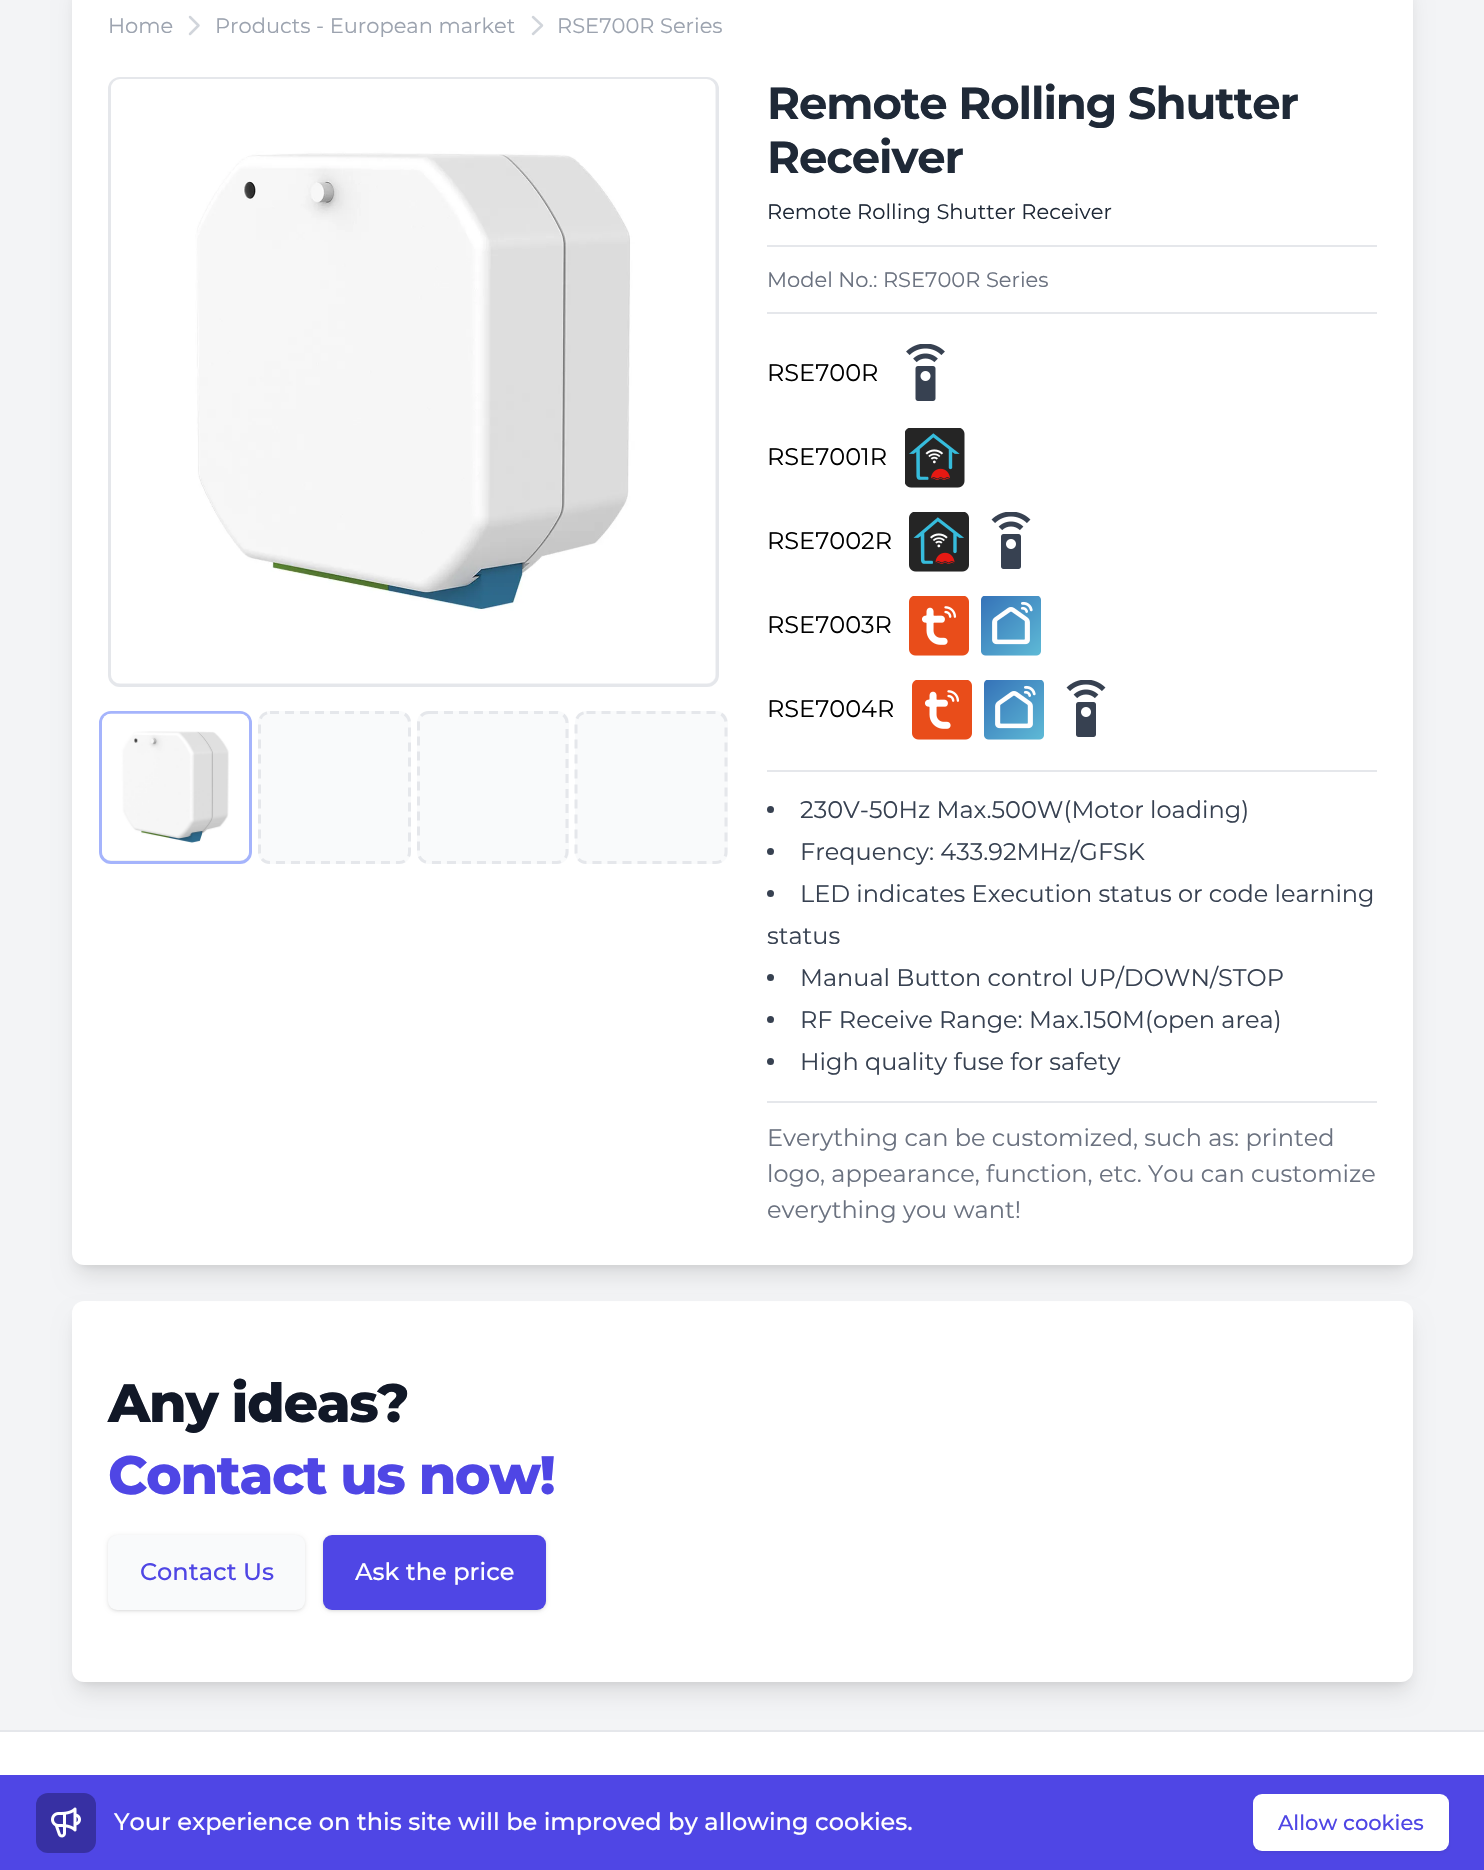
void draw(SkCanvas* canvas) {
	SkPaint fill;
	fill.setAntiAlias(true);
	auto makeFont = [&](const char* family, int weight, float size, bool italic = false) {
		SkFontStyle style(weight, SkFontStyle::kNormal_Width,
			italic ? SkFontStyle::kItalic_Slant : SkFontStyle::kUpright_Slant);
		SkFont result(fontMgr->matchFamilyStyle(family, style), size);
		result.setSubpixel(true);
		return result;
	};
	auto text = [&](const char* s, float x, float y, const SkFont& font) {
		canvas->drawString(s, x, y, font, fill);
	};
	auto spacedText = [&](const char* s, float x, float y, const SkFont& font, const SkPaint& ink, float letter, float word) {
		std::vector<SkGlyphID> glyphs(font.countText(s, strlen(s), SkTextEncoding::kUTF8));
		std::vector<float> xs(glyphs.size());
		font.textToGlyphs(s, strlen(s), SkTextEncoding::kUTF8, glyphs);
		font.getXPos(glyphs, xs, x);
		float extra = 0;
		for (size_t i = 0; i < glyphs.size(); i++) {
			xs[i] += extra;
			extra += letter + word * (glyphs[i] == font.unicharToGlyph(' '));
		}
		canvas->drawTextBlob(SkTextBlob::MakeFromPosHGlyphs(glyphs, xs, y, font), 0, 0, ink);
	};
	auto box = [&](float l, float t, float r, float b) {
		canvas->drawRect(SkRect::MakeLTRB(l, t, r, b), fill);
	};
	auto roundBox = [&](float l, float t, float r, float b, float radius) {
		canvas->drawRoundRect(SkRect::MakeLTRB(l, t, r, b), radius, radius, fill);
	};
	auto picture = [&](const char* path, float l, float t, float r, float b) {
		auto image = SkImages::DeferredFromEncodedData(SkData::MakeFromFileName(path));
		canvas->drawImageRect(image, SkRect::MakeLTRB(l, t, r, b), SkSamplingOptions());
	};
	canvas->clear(0xFFF3F4F6);
	fill.setColor(0x1A000000);
	fill.setMaskFilter(SkMaskFilter::MakeBlur(kNormal_SkBlurStyle, 4.5f));
	canvas->drawRoundRect(SkRect::MakeLTRB(78, -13, 1407, 1265), 6, 6, fill);
	fill.setMaskFilter(nullptr);
	fill.setMaskFilter(SkMaskFilter::MakeBlur(kNormal_SkBlurStyle, 4.5f));
	canvas->drawRoundRect(SkRect::MakeLTRB(78, 1313, 1407, 1682), 6, 6, fill);
	fill.setMaskFilter(nullptr);
	fill.setMaskFilter(SkMaskFilter::MakeBlur(kNormal_SkBlurStyle, 11));
	canvas->drawRoundRect(SkRect::MakeLTRB(77, 1320, 1409, 1692), 8, 8, fill);
	fill.setMaskFilter(nullptr);
	fill.setColor(0xFFFFFFFF);
	roundBox(72, 1301, 1413, 1682, 12);
	fill.setColor(0x1A000000);
	fill.setMaskFilter(SkMaskFilter::MakeBlur(kNormal_SkBlurStyle, 11));
	canvas->drawRoundRect(SkRect::MakeLTRB(77, -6, 1409, 1275), 8, 8, fill);
	fill.setMaskFilter(nullptr);
	fill.setColor(0xFFFFFFFF);
	roundBox(72, -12, 1413, 1265, 12);
	fill.setStyle(SkPaint::kStroke_Style);
	fill.setStrokeWidth(2.5f);
	fill.setStrokeCap(SkPaint::kRound_Cap);
	fill.setStrokeJoin(SkPaint::kRound_Join);
	fill.setColor(0xFFD1D5DB);
	canvas->drawPath(SkPathBuilder().moveTo(190, 17).lineTo(198.5f, 25.5f).lineTo(190, 34).detach(), fill);
	canvas->drawPath(SkPathBuilder().moveTo(533, 17).lineTo(542, 25.5f).lineTo(533, 34).detach(), fill);
	fill.setStyle(SkPaint::kFill_Style);
	fill.setColor(0xFFF3F4F6);
	canvas->drawRoundRect(SkRect::MakeLTRB(109.5f, 78.5f, 717.5f, 685.5f), 10.5f, 10.5f, fill);
	fill.setStyle(SkPaint::kStroke_Style);
	fill.setStrokeWidth(3);
	fill.setStrokeCap(SkPaint::kButt_Cap);
	fill.setStrokeJoin(SkPaint::kMiter_Join);
	fill.setColor(0xFFE5E7EB);
	canvas->drawRoundRect(SkRect::MakeLTRB(109.5f, 78.5f, 717.5f, 685.5f), 10.5f, 10.5f, fill);
	picture("image0.png", 111, 79, 715, 683);
	fill.setStyle(SkPaint::kFill_Style);
	fill.setColor(0xFFF3F4F6);
	canvas->drawRoundRect(SkRect::MakeLTRB(100.5f, 712.5f, 250.5f, 862.5f), 10.5f, 10.5f, fill);
	fill.setStyle(SkPaint::kStroke_Style);
	fill.setColor(0xFFA5B4FC);
	canvas->drawRoundRect(SkRect::MakeLTRB(100.5f, 712.5f, 250.5f, 862.5f), 10.5f, 10.5f, fill);
	picture("image1.png", 102, 713, 249, 860);
	fill.setStyle(SkPaint::kFill_Style);
	fill.setColor(0xFFF9FAFB);
	roundBox(258, 711, 411, 864, 12);
	fill.setStyle(SkPaint::kStroke_Style);
	fill.setColor(0xFFE5E7EB);
	fill.setPathEffect(SkDashPathEffect::Make({{9, 6}}, 0));
	canvas->drawPath(SkPathBuilder().moveTo(270, 712.5f).lineTo(399, 712.5f).cubicTo(405, 712.5f, 409.5f, 717, 409.5f, 723).lineTo(409.5f, 852).cubicTo(409.5f, 858, 405, 862.5f, 399, 862.5f).lineTo(270, 862.5f).cubicTo(264, 862.5f, 259.5f, 858, 259.5f, 852).lineTo(259.5f, 723).cubicTo(259.5f, 717, 264, 712.5f, 270, 712.5f).close().detach(), fill);
	fill.setPathEffect(nullptr);
	fill.setStyle(SkPaint::kFill_Style);
	fill.setColor(0xFFF9FAFB);
	roundBox(417, 711, 569, 864, 12);
	fill.setStyle(SkPaint::kStroke_Style);
	fill.setColor(0xFFE5E7EB);
	fill.setPathEffect(SkDashPathEffect::Make({{9, 6}}, 0));
	canvas->drawPath(SkPathBuilder().moveTo(429, 712.5f).lineTo(556.5f, 712.5f).cubicTo(562.5f, 712.5f, 567, 717, 567, 723).lineTo(567, 852).cubicTo(567, 858, 562.5f, 862.5f, 556.5f, 862.5f).lineTo(429, 862.5f).cubicTo(423, 862.5f, 418.5f, 858, 418.5f, 852).lineTo(418.5f, 723).cubicTo(418.5f, 717, 423, 712.5f, 429, 712.5f).close().detach(), fill);
	fill.setPathEffect(nullptr);
	fill.setStyle(SkPaint::kFill_Style);
	fill.setColor(0xFFF9FAFB);
	roundBox(575, 711, 728, 864, 12);
	fill.setStyle(SkPaint::kStroke_Style);
	fill.setColor(0xFFE5E7EB);
	fill.setPathEffect(SkDashPathEffect::Make({{9, 6}}, 0));
	canvas->drawPath(SkPathBuilder().moveTo(586.5f, 712.5f).lineTo(715.5f, 712.5f).cubicTo(721.5f, 712.5f, 726, 717, 726, 723).lineTo(726, 852).cubicTo(726, 858, 721.5f, 862.5f, 715.5f, 862.5f).lineTo(586.5f, 862.5f).cubicTo(580.5f, 862.5f, 576, 858, 576, 852).lineTo(576, 723).cubicTo(576, 717, 580.5f, 712.5f, 586.5f, 712.5f).close().detach(), fill);
	fill.setPathEffect(nullptr);
	fill.setStyle(SkPaint::kFill_Style);
	box(767, 245, 1377, 247);
	box(767, 312, 1377, 314);
	picture("image2.png", 906, 344, 945, 401);
	picture("image3.png", 905, 428, 965, 488);
	picture("image4.png", 909, 512, 969, 572);
	picture("image5.png", 991, 512, 1031, 569);
	picture("image6.png", 909, 596, 969, 656);
	picture("image7.png", 981, 596, 1041, 656);
	picture("image6.png", 912, 680, 972, 740);
	picture("image7.png", 984, 680, 1044, 740);
	picture("image5.png", 1066, 680, 1106, 737);
	box(767, 770, 1377, 772);
	fill.setColor(0xFF374151);
	canvas->drawCircle(770.5f, 809.5f, 3.5f, fill);
	canvas->drawCircle(770.5f, 851.5f, 3.5f, fill);
	canvas->drawCircle(770.5f, 893.5f, 3.5f, fill);
	canvas->drawCircle(770.5f, 977.5f, 3.5f, fill);
	canvas->drawCircle(770.5f, 1019.5f, 3.5f, fill);
	canvas->drawCircle(770.5f, 1061.5f, 3.5f, fill);
	fill.setColor(0xFFE5E7EB);
	box(767, 1101, 1377, 1103);
	fill.setColor(0x1A000000);
	fill.setMaskFilter(SkMaskFilter::MakeBlur(kNormal_SkBlurStyle, 1.5f));
	canvas->drawRoundRect(SkRect::MakeLTRB(110, 1538, 303, 1610), 8, 8, fill);
	fill.setMaskFilter(nullptr);
	fill.setMaskFilter(SkMaskFilter::MakeBlur(kNormal_SkBlurStyle, 2));
	canvas->drawRoundRect(SkRect::MakeLTRB(108, 1536, 305, 1611), 9, 9, fill);
	fill.setMaskFilter(nullptr);
	fill.setColor(0xFFF9FAFB);
	roundBox(108, 1535, 305, 1610, 9);
	fill.setColor(0x1A000000);
	fill.setMaskFilter(SkMaskFilter::MakeBlur(kNormal_SkBlurStyle, 1.5f));
	canvas->drawRoundRect(SkRect::MakeLTRB(324, 1538, 545, 1610), 8, 8, fill);
	fill.setMaskFilter(nullptr);
	fill.setMaskFilter(SkMaskFilter::MakeBlur(kNormal_SkBlurStyle, 2));
	canvas->drawRoundRect(SkRect::MakeLTRB(323, 1536, 546, 1611), 9, 9, fill);
	fill.setMaskFilter(nullptr);
	fill.setColor(0xFF4F46E5);
	roundBox(323, 1535, 546, 1610, 9);
	fill.setColor(0xFFFFFFFF);
	box(0, 1732, 1484, 1775);
	fill.setColor(0xFFE5E7EB);
	box(0, 1730, 1484, 1732);
	fill.setColor(0xFF4F46E5);
	box(0, 1775, 1484, 1870);
	fill.setColor(0xFF3730A3);
	roundBox(36, 1793, 96, 1853, 12);
	picture("image8.png", 51, 1807, 81, 1838);
	fill.setColor(0x0D000000);
	fill.setMaskFilter(SkMaskFilter::MakeBlur(kNormal_SkBlurStyle, 1.5f));
	canvas->drawRoundRect(SkRect::MakeLTRB(1253, 1796, 1449, 1853), 9, 9, fill);
	fill.setMaskFilter(nullptr);
	fill.setColor(0xFFFFFFFF);
	roundBox(1253, 1794, 1449, 1851, 9);
	auto font1 = makeFont("Montserrat", 400, 21);
	fill.setColor(0xFF9CA3AF);
	text("Home", 108, 33, font1);
	text("Products - European market", 215, 33, font1);
	text("RSE700R Series", 557, 33, font1);
	auto font2 = makeFont("Montserrat", 700, 45);
	fill.setColor(0xFF1F2937);
	spacedText("Remote Rolling Shutter", 767, 119, font2, fill, -1.1f, 0);
	spacedText("Receiver", 767, 173, font2, fill, -1.1f, 0);
	text("Remote Rolling Shutter Receiver", 767, 219, font1);
	fill.setColor(0xFF6B7280);
	text("Model No.: RSE700R Series", 767, 287, font1);
	auto font3 = makeFont("Montserrat", 400, 24);
	fill.setColor(0xFF000000);
	text("RSE700R", 767, 381, font3);
	text("RSE7001R", 767, 465, font3);
	text("RSE7002R", 767, 549, font3);
	text("RSE7003R", 767, 633, font3);
	text("RSE7004R", 767, 717, font3);
	fill.setColor(0xFF374151);
	text("230V-50Hz Max.500W(Motor loading)", 800, 818, font3);
	text("Frequency: 433.92MHz/GFSK", 800, 860, font3);
	text("LED indicates Execution status or code learning", 800, 902, font3);
	text("status", 767, 944, font3);
	text("Manual Button control UP/DOWN/STOP", 800, 986, font3);
	text("RF Receive Range: Max.150M(open area)", 800, 1028, font3);
	text("High quality fuse for safety", 800, 1070, font3);
	fill.setColor(0xFF6B7280);
	text("Everything can be customized, such as: printed", 767, 1146, font3);
	text("logo, appearance, function, etc. You can customize", 767, 1182, font3);
	text("everything you want!", 767, 1218, font3);
	auto font4 = makeFont("Montserrat", 800, 54);
	fill.setColor(0xFF111827);
	spacedText("Any ideas?", 108, 1422, font4, fill, -1.4f, 0);
	fill.setColor(0xFF4F46E5);
	spacedText("Contact us now!", 108, 1494, font4, fill, -1.4f, 0);
	auto font5 = makeFont("Montserrat", 500, 24);
	text("Contact Us", 140, 1580, font5);
	fill.setColor(0xFFFFFFFF);
	text("Ask the price", 355, 1580, font5);
	text("Your experience on this site will be improved by allowing cookies.", 114, 1830, font5);
	auto font6 = makeFont("Montserrat", 500, 21);
	fill.setColor(0xFF4F46E5);
	text("Allow cookies", 1278, 1830, font6);
}
